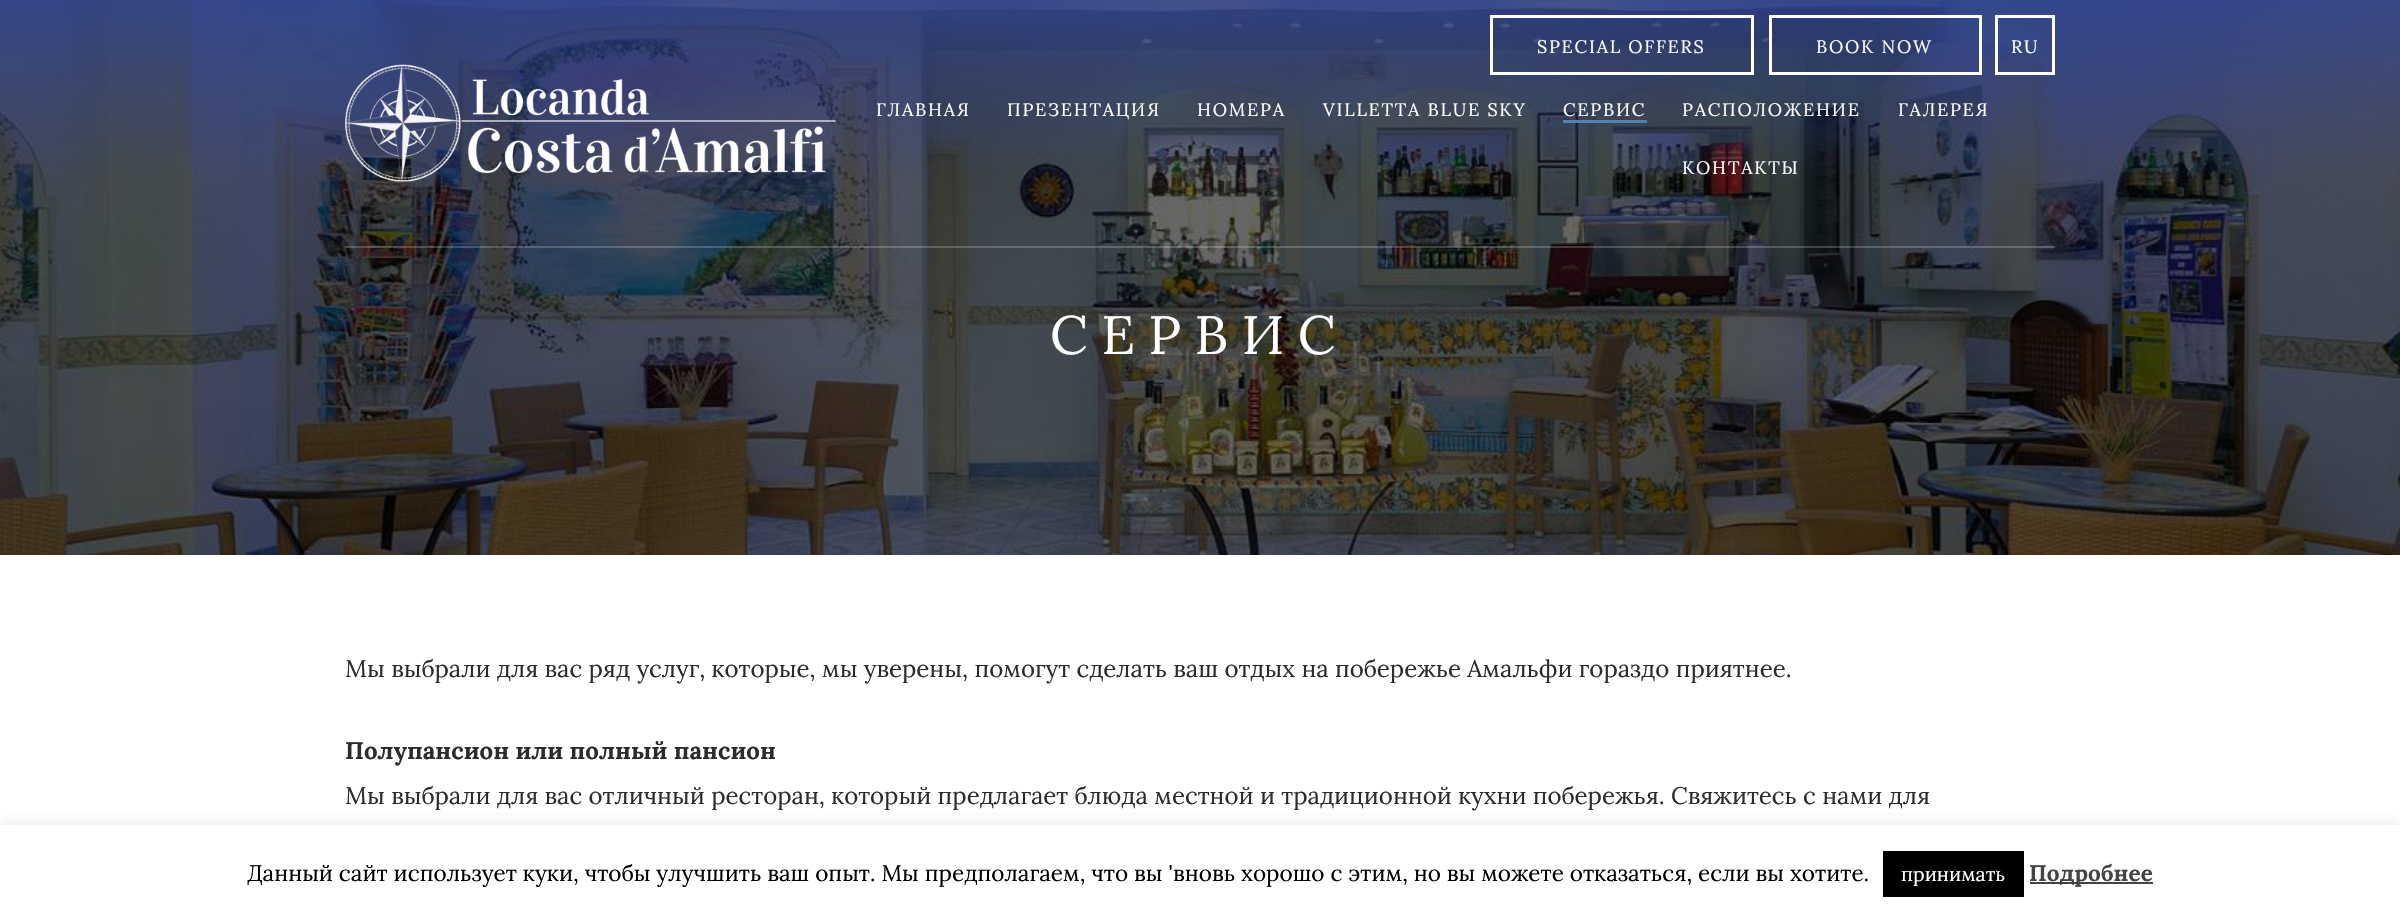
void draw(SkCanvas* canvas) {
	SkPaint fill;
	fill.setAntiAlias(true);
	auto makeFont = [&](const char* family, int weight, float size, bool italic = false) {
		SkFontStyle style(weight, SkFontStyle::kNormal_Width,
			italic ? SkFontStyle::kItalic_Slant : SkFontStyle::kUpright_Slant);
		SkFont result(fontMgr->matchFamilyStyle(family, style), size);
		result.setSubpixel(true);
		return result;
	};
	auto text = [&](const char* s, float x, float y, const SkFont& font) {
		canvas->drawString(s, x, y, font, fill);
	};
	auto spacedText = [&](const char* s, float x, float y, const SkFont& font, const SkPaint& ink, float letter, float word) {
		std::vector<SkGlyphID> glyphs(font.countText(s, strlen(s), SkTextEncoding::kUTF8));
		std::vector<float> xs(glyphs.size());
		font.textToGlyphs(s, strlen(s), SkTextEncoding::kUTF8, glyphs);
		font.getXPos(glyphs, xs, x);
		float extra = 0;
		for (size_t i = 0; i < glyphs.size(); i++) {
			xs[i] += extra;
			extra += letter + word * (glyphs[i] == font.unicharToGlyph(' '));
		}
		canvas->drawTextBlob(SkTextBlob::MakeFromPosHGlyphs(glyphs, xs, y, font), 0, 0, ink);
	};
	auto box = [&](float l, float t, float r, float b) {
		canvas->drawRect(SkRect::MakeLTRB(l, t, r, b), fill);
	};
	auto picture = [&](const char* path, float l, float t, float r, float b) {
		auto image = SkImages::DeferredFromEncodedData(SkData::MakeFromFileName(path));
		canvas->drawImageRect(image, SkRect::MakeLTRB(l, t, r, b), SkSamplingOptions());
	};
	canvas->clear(0xFFFFFFFF);
	picture("image1.png", 0, 0, 2400, 555);
	fill.setStyle(SkPaint::kStroke_Style);
	fill.setStrokeWidth(3);
	fill.setColor(0xFFFFFFFF);
	canvas->drawRect(SkRect::MakeLTRB(1491.5f, 16.5f, 1752.5f, 73.5f), fill);
	canvas->drawRect(SkRect::MakeLTRB(1770.5f, 16.5f, 1980.5f, 73.5f), fill);
	canvas->drawRect(SkRect::MakeLTRB(1996.5f, 16.5f, 2053.5f, 73.5f), fill);
	fill.setStyle(SkPaint::kFill_Style);
	fill.setColor(0x33FFFFFF);
	box(345, 246, 2055, 248);
	picture("image0.png", 345, 64, 836, 182);
	fill.setColor(0xFF5082B3);
	box(1563, 120, 1647, 123);
	fill.setColor(0x4DACABAB);
	fill.setMaskFilter(SkMaskFilter::MakeBlur(kNormal_SkBlurStyle, 7.5f));
	canvas->drawRect(SkRect::MakeLTRB(0, 824, 2400, 914), fill);
	fill.setMaskFilter(nullptr);
	fill.setColor(0xFFFFFFFF);
	box(0, 825, 2400, 914);
	fill.setColor(0xFF000000);
	box(1883, 851, 2024, 897);
	fill.setColor(0xFF444444);
	box(2030, 882, 2153, 884);
	auto font1 = makeFont("Lora", 400, 18);
	fill.setColor(0xFFFFFFFF);
	spacedText("SPECIAL OFFERS", 1537, 53, font1, fill, 1.75f, 0);
	spacedText("BOOK NOW", 1816, 53, font1, fill, 1.75f, 0);
	spacedText("RU", 2011, 53, font1, fill, 1.75f, 0);
	spacedText("ГЛАВНАЯ", 876, 116, font1, fill, 1.75f, 0);
	spacedText("ПРЕЗЕНТАЦИЯ", 1007, 116, font1, fill, 1.75f, 0);
	spacedText("НОМЕРА", 1197, 116, font1, fill, 1.75f, 0);
	spacedText("VILLETTA BLUE SKY", 1323, 116, font1, fill, 1.75f, 0);
	spacedText("СЕРВИС", 1563, 116, font1, fill, 1.75f, 0);
	spacedText("РАСПОЛОЖЕНИЕ", 1682, 116, font1, fill, 1.75f, 0);
	spacedText("ГАЛЕРЕЯ", 1898, 116, font1, fill, 1.75f, 0);
	spacedText("КОНТАКТЫ", 1682, 174, font1, fill, 1.75f, 0);
	auto font2 = makeFont("Lora", 400, 54);
	spacedText("СЕРВИС", 1050, 354, font2, fill, 13.5f, 0);
	auto font3 = makeFont("Lora", 400, 24);
	fill.setColor(0xFF2C2C2C);
	text("Мы выбрали для вас ряд услуг, которые, мы уверены, помогут сделать ваш отдых на побережье Амальфи гораздо приятнее.", 345, 677, font3);
	auto font4 = makeFont("Lora", 700, 24);
	text("Полупансион или полный пансион", 345, 759, font4);
	text("Мы выбрали для вас отличный ресторан, который предлагает блюда местной и традиционной кухни побережья. Свяжитесь с нами для", 345, 804, font3);
	auto font5 = makeFont("Lora", 400, 22.5f);
	fill.setColor(0xFF000000);
	text("Данный сайт использует куки, чтобы улучшить ваш опыт. Мы предполагаем, что вы 'вновь хорошо с этим, но вы можете отказаться, если вы хотите.", 247, 881, font5);
	auto font6 = makeFont("Lora", 400, 19.5f);
	fill.setColor(0xFFFFFFFF);
	text("принимать", 1901, 881, font6);
	auto font7 = makeFont("Lora", 700, 22.5f);
	fill.setColor(0xFF444444);
	text("Подробнее", 2029, 881, font7);
}
